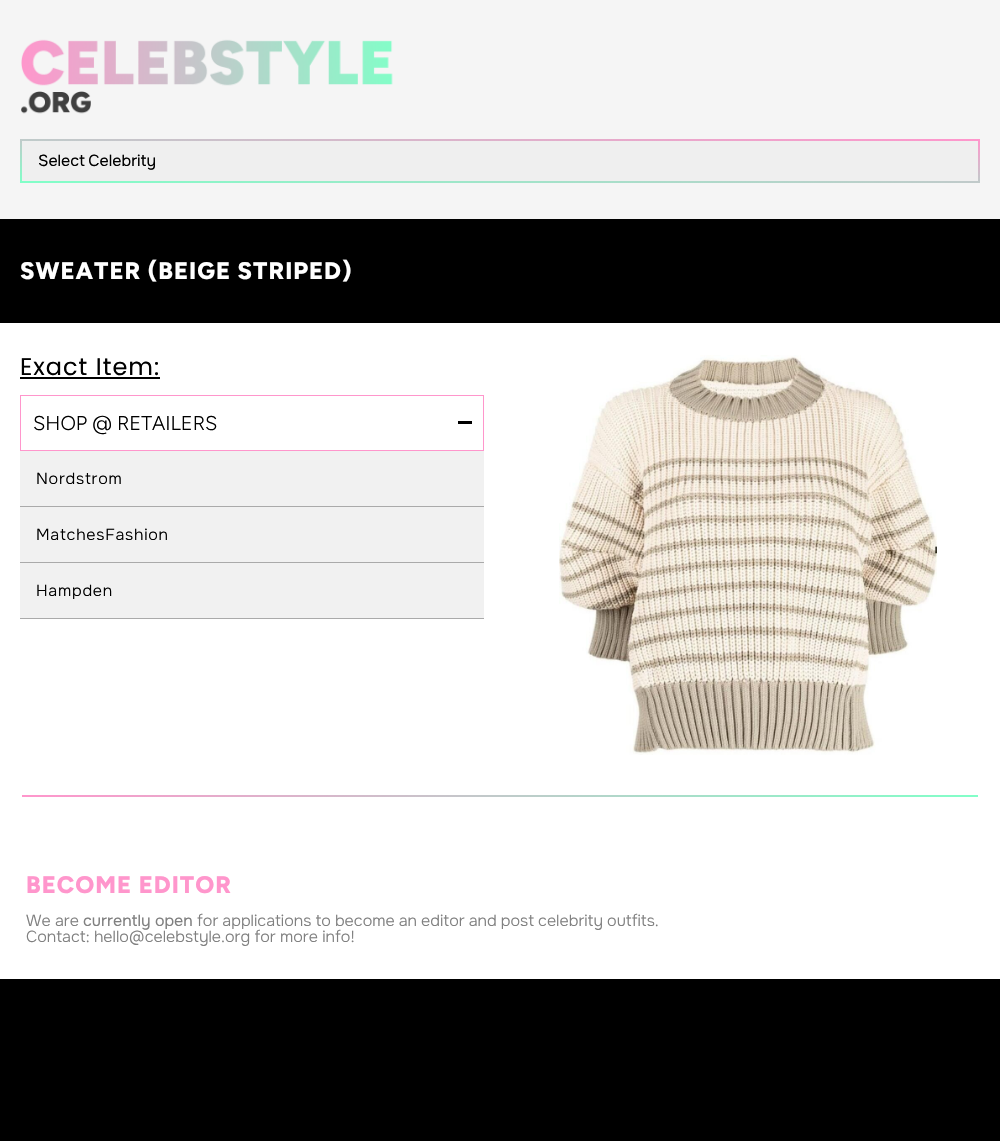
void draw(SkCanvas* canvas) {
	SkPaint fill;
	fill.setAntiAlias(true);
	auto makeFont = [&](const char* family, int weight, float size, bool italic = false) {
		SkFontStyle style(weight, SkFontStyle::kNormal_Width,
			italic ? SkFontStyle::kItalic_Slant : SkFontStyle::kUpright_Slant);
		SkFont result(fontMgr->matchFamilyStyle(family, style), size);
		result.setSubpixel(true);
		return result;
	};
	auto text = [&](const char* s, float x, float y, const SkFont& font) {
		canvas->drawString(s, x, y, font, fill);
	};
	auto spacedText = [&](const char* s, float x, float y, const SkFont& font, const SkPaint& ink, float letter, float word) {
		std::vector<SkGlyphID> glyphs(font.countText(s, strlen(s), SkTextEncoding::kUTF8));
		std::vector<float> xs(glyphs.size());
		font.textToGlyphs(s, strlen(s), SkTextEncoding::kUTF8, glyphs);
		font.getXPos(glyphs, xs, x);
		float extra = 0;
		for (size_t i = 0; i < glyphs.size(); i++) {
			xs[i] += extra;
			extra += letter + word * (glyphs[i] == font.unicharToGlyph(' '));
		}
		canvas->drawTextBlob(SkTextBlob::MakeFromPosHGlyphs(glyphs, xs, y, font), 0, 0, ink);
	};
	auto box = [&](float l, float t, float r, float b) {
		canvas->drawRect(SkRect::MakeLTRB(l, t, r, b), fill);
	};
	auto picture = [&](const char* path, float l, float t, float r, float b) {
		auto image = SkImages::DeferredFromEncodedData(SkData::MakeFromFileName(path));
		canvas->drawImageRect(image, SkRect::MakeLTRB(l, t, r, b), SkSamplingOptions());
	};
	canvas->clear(0xFFFFFFFF);
	fill.setColor(0xFFF5F5F5);
	box(0, 0, 1000, 219);
	picture("image0.png", 21, 39, 393, 114);
	fill.setColor(0xFFEFEFEF);
	box(22, 141, 978, 181);
	picture("image1.png", 20, 139, 980, 183);
	fill.setColor(0xFF000000);
	box(0, 219, 1000, 323);
	box(20, 377, 160, 379);
	fill.setStyle(SkPaint::kStroke_Style);
	fill.setStrokeWidth(1);
	fill.setColor(0xFFFF96CC);
	canvas->drawRect(SkRect::MakeLTRB(20.5f, 395.5f, 483.5f, 450.5f), fill);
	fill.setStyle(SkPaint::kFill_Style);
	fill.setColor(0xFF000000);
	box(458, 421, 472, 424);
	fill.setColor(0xFFF1F1F1);
	box(20, 451, 484, 506);
	fill.setColor(0xFFAAAAAA);
	box(20, 506, 484, 507);
	fill.setColor(0xFFF1F1F1);
	box(20, 507, 484, 562);
	fill.setColor(0xFFAAAAAA);
	box(20, 562, 484, 563);
	fill.setColor(0xFFF1F1F1);
	box(20, 563, 484, 618);
	fill.setColor(0xFFAAAAAA);
	box(20, 618, 484, 619);
	picture("image2.png", 559, 355, 937, 755);
	picture("image3.png", 22, 795, 978, 797);
	fill.setColor(0xFF000000);
	box(0, 979, 1000, 1141);
	auto font1 = makeFont("Onest", 400, 16);
	spacedText("Select Celebrity", 38, 166, font1, fill, 0, -1);
	auto font2 = makeFont("Figtree", 800, 24);
	fill.setColor(0xFFFFFFFF);
	spacedText("SWEATER (BEIGE STRIPED)", 20, 279, font2, fill, 1, 0);
	auto font3 = makeFont("Poppins", 400, 24);
	fill.setColor(0xFF000000);
	spacedText("Exact Item:", 20, 375, font3, fill, 1, 0);
	auto font4 = makeFont("Figtree", 300, 20);
	text("SHOP @ RETAILERS", 33, 430, font4);
	auto font5 = makeFont("Onest", 300, 16);
	spacedText("Nordstrom", 36, 484, font5, fill, 0.75f, 0);
	spacedText("MatchesFashion", 36, 540, font5, fill, 0.75f, 0);
	spacedText("Hampden", 36, 596, font5, fill, 0.75f, 0);
	fill.setColor(0xFFFF96CC);
	spacedText("BECOME EDITOR", 26, 893, font2, fill, 1, 0);
	fill.setColor(0xFF808080);
	text("We are", 26, 926, font5);
	text("currently open", 83, 926, font1);
	spacedText("for applications to become an editor and post celebrity outfits.", 197, 926, font5, fill, 0, -0.25f);
	text("Contact: hello@celebstyle.org for more info!", 26, 942, font5);
}
